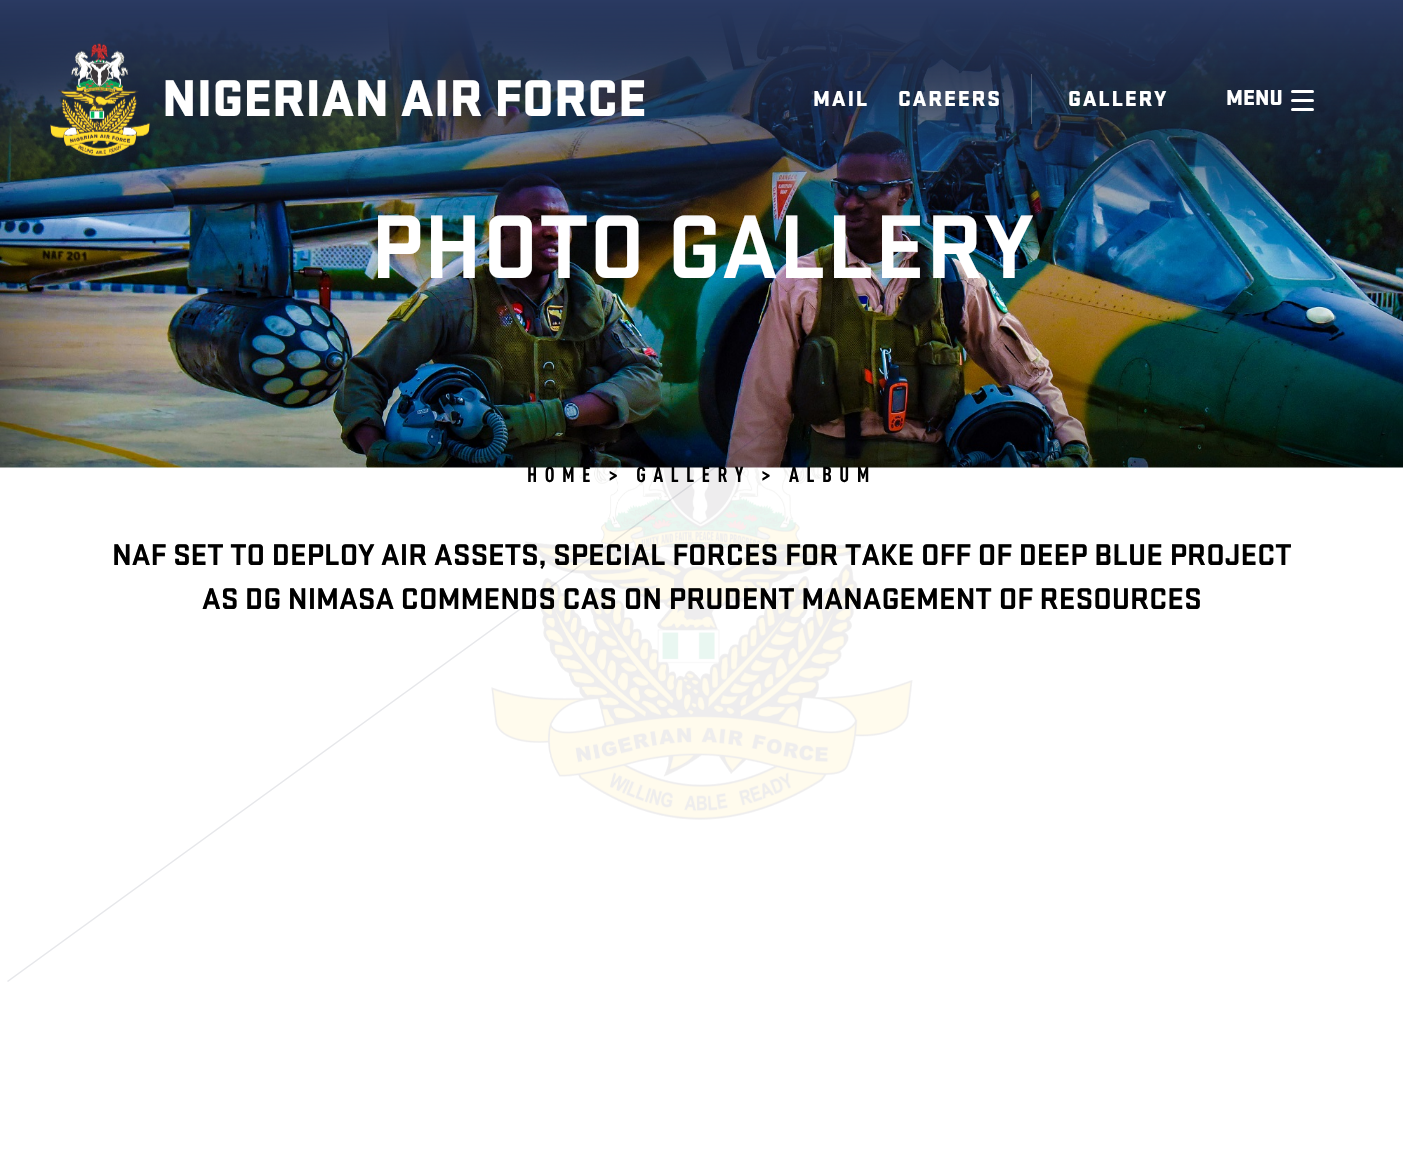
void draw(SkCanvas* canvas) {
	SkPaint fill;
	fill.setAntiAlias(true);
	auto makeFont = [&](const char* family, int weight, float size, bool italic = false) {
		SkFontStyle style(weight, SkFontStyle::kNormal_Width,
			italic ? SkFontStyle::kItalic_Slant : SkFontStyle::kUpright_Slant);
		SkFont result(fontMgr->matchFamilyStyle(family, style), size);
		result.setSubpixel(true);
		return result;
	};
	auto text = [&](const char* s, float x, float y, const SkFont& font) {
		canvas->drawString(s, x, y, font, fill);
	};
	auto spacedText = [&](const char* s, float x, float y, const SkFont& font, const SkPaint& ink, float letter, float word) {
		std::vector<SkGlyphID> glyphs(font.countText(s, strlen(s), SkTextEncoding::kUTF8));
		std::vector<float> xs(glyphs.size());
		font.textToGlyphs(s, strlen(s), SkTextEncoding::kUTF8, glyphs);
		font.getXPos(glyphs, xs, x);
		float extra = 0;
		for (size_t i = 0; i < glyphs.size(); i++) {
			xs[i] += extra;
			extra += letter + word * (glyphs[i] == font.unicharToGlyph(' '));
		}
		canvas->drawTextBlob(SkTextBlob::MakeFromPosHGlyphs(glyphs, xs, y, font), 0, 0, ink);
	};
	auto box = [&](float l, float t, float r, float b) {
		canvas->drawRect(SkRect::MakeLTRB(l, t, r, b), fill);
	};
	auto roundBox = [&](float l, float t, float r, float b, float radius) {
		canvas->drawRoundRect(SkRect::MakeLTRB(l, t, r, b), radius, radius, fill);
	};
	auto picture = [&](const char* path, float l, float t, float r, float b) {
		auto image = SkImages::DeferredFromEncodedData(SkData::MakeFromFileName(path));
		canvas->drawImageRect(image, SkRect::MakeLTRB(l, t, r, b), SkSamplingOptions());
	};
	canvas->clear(0xFFFFFFFF);
	picture("image2.png", 491, 467, 913, 820);
	picture("image1.png", 0, 1, 1403, 468);
	fill.setColor(0x1A0E182D);
	canvas->drawPath(SkPathBuilder().moveTo(7, 981).lineTo(1396, -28).lineTo(1397, -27).lineTo(8, 982).close().detach(), fill);
	auto font1 = makeFont("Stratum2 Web", 700, 93.75f);
	fill.setColor(0xFFFFFFFF);
	spacedText("PHOTO GALLERY", 371, 278, font1, fill, 1, 0);
	{
		const SkColor colors[] = {0xFF293961, 0x00293961};
		const float stops[] = {0, 1};
		const SkPoint ends[] = {{702, 0}, {702, 225}};
		fill.setShader(SkGradientShader::MakeLinear(ends, colors, stops, 2, SkTileMode::kClamp));
		fill.setAlpha(255);
	}
	box(0, 0, 1403, 220);
	fill.setShader(nullptr);
	fill.setColor(0xFFFFFFFF);
	roundBox(1291, 108, 1314, 111, 1.5f);
	roundBox(1291, 99, 1314, 102, 1.5f);
	roundBox(1291, 90, 1314, 93, 1.5f);
	fill.setColor(0x40FFFFFF);
	box(1031, 74, 1032, 124);
	auto font2 = makeFont("Stratum2 Web", 900, 22.5f);
	fill.setColor(0xFFFFFFFF);
	spacedText("GALLERY", 1068, 106, font2, fill, 1.75f, 0);
	spacedText("CAREERS", 898, 106, font2, fill, 1.75f, 0);
	spacedText("MAIL", 813, 106, font2, fill, 1.75f, 0);
	text("MENU", 1226, 105, font2);
	auto font3 = makeFont("Stratum2 Web", 900, 53.75f);
	text("NIGERIAN AIR FORCE", 162, 116, font3);
	picture("image0.png", 50, 43, 150, 157);
	auto font4 = makeFont("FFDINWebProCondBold", 400, 21.25f);
	fill.setColor(0xFF000000);
	spacedText("HOME > GALLERY > ALBUM", 527, 482, font4, fill, 7.4f, 0);
	auto font5 = makeFont("Stratum2 Web", 700, 31.25f);
	text("NAF SET TO DEPLOY AIR ASSETS, SPECIAL FORCES FOR TAKE OFF OF DEEP BLUE PROJECT", 112, 565, font5);
	text("AS DG NIMASA COMMENDS CAS ON PRUDENT MANAGEMENT OF RESOURCES", 202, 609, font5);
}
